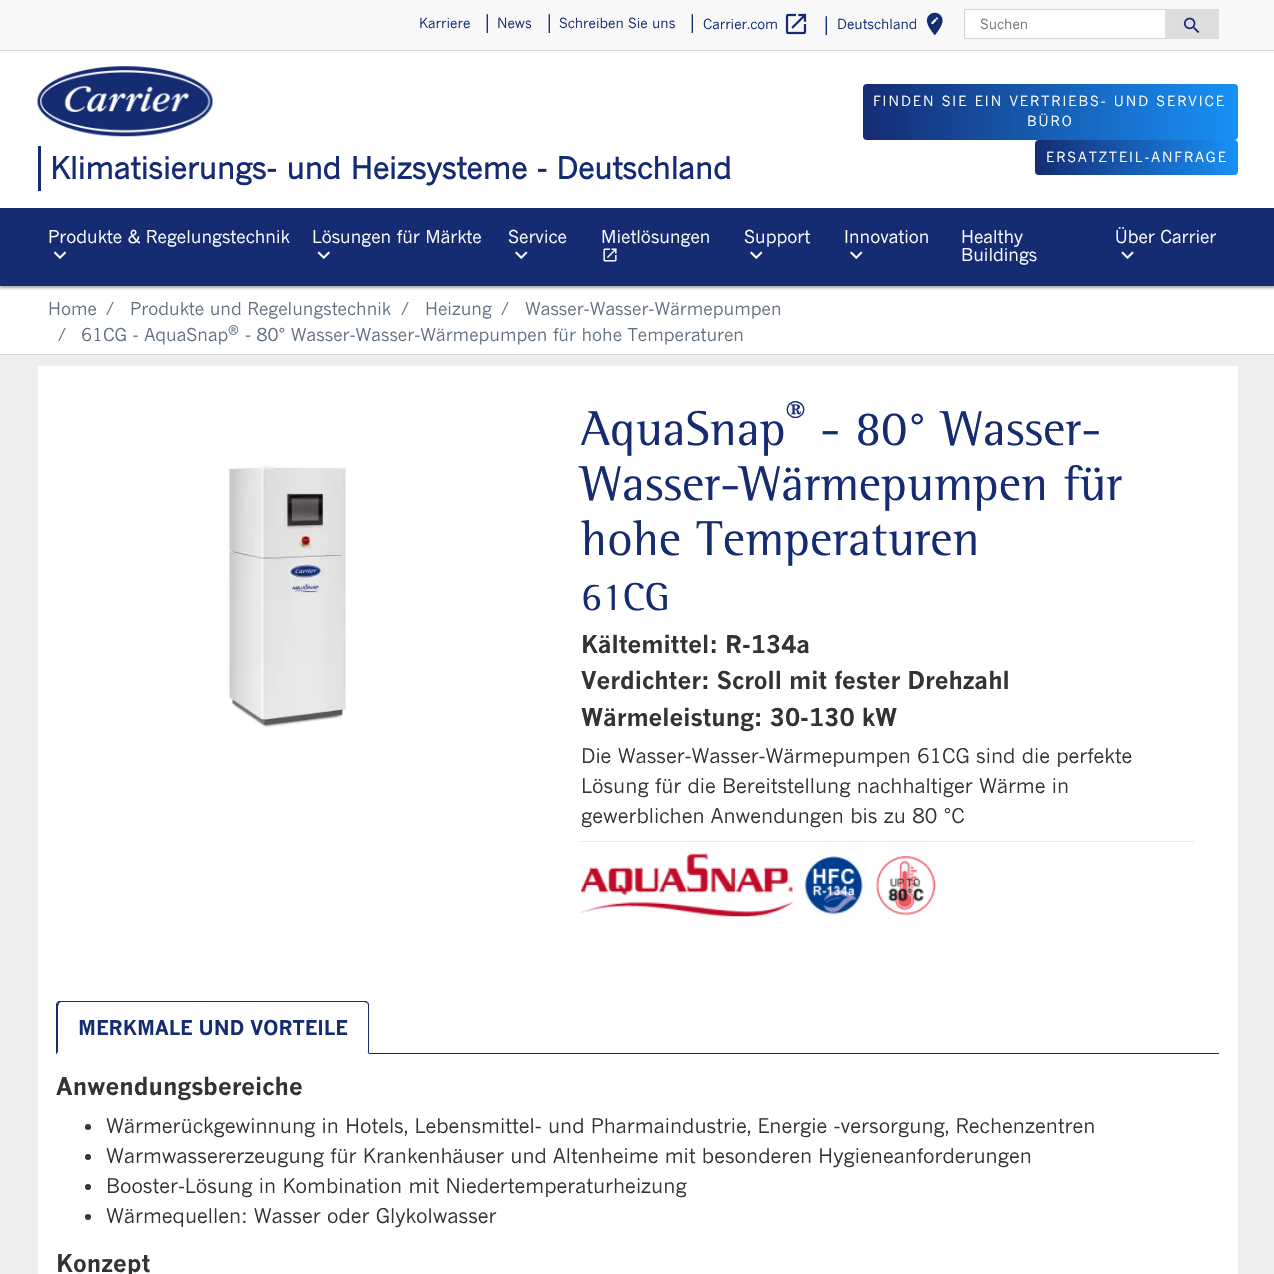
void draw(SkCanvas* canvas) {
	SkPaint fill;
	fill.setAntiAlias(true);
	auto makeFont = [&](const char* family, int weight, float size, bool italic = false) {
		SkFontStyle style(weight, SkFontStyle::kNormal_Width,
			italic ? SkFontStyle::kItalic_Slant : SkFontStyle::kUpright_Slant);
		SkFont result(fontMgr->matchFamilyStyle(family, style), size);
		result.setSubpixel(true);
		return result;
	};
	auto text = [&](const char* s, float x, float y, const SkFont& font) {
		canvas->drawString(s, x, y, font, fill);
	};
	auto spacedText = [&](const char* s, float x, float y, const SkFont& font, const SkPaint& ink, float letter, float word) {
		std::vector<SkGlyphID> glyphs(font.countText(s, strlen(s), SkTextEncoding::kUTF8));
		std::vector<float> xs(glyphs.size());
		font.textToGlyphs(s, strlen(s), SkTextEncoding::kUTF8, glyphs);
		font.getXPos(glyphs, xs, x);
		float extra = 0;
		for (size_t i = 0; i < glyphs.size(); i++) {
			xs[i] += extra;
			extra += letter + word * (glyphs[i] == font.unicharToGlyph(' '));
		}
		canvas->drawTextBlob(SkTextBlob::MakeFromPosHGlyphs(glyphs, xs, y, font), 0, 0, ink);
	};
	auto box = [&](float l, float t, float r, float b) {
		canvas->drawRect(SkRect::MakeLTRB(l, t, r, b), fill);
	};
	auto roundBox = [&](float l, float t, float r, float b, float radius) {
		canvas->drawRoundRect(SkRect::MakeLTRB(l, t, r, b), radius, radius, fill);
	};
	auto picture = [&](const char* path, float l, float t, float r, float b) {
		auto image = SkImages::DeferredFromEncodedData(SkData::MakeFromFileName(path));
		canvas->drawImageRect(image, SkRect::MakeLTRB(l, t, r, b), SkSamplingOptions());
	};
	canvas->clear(0xFFEEEEEE);
	fill.setColor(0xFFFFFFFF);
	box(0, 286, 1274, 354);
	fill.setColor(0x1F000000);
	fill.setMaskFilter(SkMaskFilter::MakeBlur(kNormal_SkBlurStyle, 2));
	canvas->drawRect(SkRect::MakeLTRB(0, 1, 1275, 288), fill);
	fill.setMaskFilter(nullptr);
	fill.setColor(0x3D000000);
	fill.setMaskFilter(SkMaskFilter::MakeBlur(kNormal_SkBlurStyle, 1));
	canvas->drawRect(SkRect::MakeLTRB(0, 1, 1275, 288), fill);
	fill.setMaskFilter(nullptr);
	fill.setColor(0xFFFFFFFF);
	box(0, 51, 1274, 208);
	fill.setColor(0xFFF8F8F8);
	box(0, 0, 1274, 50);
	fill.setColor(0xFFDADADA);
	box(0, 50, 1274, 51);
	picture("image0.png", 785, 13, 807, 35);
	picture("image1.png", 926, 12, 943, 36);
	fill.setColor(0xFFFFFFFF);
	canvas->drawRect(SkRect::MakeLTRB(964.5f, 9.5f, 1165.5f, 38.5f), fill);
	fill.setStyle(SkPaint::kStroke_Style);
	fill.setStrokeWidth(1);
	fill.setColor(0xFFCED4DA);
	canvas->drawRect(SkRect::MakeLTRB(964.5f, 9.5f, 1165.5f, 38.5f), fill);
	fill.setStyle(SkPaint::kFill_Style);
	fill.setColor(0xFFDDDDDD);
	box(1165, 9, 1219, 39);
	picture("image2.png", 1183, 17, 1200, 33);
	{
		const SkColor colors[] = {0xFF1891F6, 0xFF152C73};
		const float stops[] = {0, 1};
		const SkPoint ends[] = {{1238, 112}, {863, 112}};
		fill.setShader(SkGradientShader::MakeLinear(ends, colors, stops, 2, SkTileMode::kClamp));
		fill.setAlpha(255);
	}
	roundBox(863, 84, 1238, 140, 4);
	{
		const SkColor colors[] = {0xFF1891F6, 0xFF152C73};
		const float stops[] = {0, 1};
		const SkPoint ends[] = {{1238, 158}, {1035, 158}};
		fill.setShader(SkGradientShader::MakeLinear(ends, colors, stops, 2, SkTileMode::kClamp));
		fill.setAlpha(255);
	}
	roundBox(1035, 140, 1238, 175, 4);
	picture("image3.png", 37, 66, 213, 137);
	fill.setShader(nullptr);
	fill.setColor(0xFF152C73);
	box(38, 146, 41, 191);
	box(0, 208, 1274, 286);
	picture("image4.png", 53, 251, 67, 259);
	picture("image5.png", 317, 251, 330, 259);
	picture("image6.png", 515, 251, 528, 259);
	picture("image7.png", 603, 248, 617, 262);
	picture("image6.png", 750, 251, 763, 259);
	picture("image6.png", 850, 251, 863, 259);
	picture("image8.png", 1121, 251, 1134, 259);
	fill.setColor(0xFFD6D6D6);
	box(0, 354, 1274, 355);
	fill.setColor(0xFFFFFFFF);
	box(38, 366, 1238, 1274);
	picture("image9.png", 227, 465, 346, 728);
	fill.setColor(0xFFE6E6E6);
	box(581, 841, 1194, 842);
	picture("image10.png", 581, 853, 793, 917);
	picture("image11.png", 802, 854, 865, 916);
	picture("image12.png", 876, 855, 936, 916);
	fill.setColor(0xFF152C73);
	box(56, 1053, 1219, 1054);
	canvas->drawPath(SkPathBuilder().moveTo(61, 1002).cubicTo(60, 1002, 59, 1003, 59, 1004).lineTo(57, 1002).lineTo(59, 1001).lineTo(366, 1001).lineTo(368, 1002).lineTo(367, 1003).lineTo(364, 1002).close().detach(), fill);
	canvas->drawPath(SkPathBuilder().moveTo(368, 1002).lineTo(369, 1004).lineTo(369, 1054).lineTo(367, 1052).lineTo(368, 1052).lineTo(368, 1006).cubicTo(368, 1005, 368, 1004, 367, 1003).close().detach(), fill);
	fill.setColor(0xFFFFFFFF);
	canvas->drawPath(SkPathBuilder().moveTo(369, 1054).lineTo(367, 1052).lineTo(58, 1052).lineTo(56, 1054).close().detach(), fill);
	fill.setColor(0xFF152C73);
	canvas->drawPath(SkPathBuilder().moveTo(56, 1054).lineTo(56, 1004).lineTo(57, 1002).lineTo(59, 1004).lineTo(58, 1006).lineTo(58, 1052).close().detach(), fill);
	fill.setColor(0xFF333333);
	canvas->drawCircle(88, 1127, 3, fill);
	canvas->drawCircle(88, 1157, 3, fill);
	canvas->drawCircle(88, 1187, 3, fill);
	canvas->drawCircle(88, 1217, 3, fill);
	auto font1 = makeFont("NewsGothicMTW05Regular", 400, 13.75f);
	fill.setColor(0xFF152C73);
	text("Karriere", 419, 28, font1);
	auto font2 = makeFont("NewsGothicMTW05Regular", 400, 20);
	text("|", 482, 29, font2);
	text("News", 497, 28, font1);
	text("|", 544, 29, font2);
	text("Schreiben Sie uns", 559, 28, font1);
	text("|", 687, 29, font2);
	text("Carrier.com", 703, 29, font1);
	text("|", 821, 31, font2);
	text("Deutschland", 837, 29, font1);
	fill.setColor(0xFF6C757D);
	text("Suchen", 980, 29, font1);
	fill.setColor(0xFFFFFFFF);
	spacedText("FINDEN SIE EIN VERTRIEBS- UND SERVICE", 873, 106, font1, fill, 2, 0);
	spacedText("BÜRO", 1027, 126, font1, fill, 2, 0);
	spacedText("ERSATZTEIL-ANFRAGE", 1046, 162, font1, fill, 2, 0);
	auto font3 = makeFont("NewsGothicMTW05Regular", 700, 30);
	fill.setColor(0xFF152C73);
	text("Klimatisierungs- und Heizsysteme - Deutschland", 50, 179, font3);
	auto font4 = makeFont("NewsGothicMTW05Regular", 400, 17.5f);
	fill.setColor(0xFFFFFFFF);
	text("Produkte & Regelungstechnik", 48, 243, font4);
	text("Lösungen für Märkte", 312, 243, font4);
	text("Service", 508, 243, font4);
	text("Mietlösungen", 601, 243, font4);
	text("Support", 744, 243, font4);
	text("Innovation", 844, 243, font4);
	text("Healthy", 961, 243, font4);
	text("Buildings", 961, 261, font4);
	text("Über Carrier", 1115, 243, font4);
	fill.setColor(0xFF617080);
	text("Home", 48, 315, font4);
	fill.setColor(0xFF6C757D);
	text("/", 106, 315, font4);
	fill.setColor(0xFF617080);
	text("Produkte und Regelungstechnik", 130, 315, font4);
	fill.setColor(0xFF6C757D);
	text("/", 401, 315, font4);
	fill.setColor(0xFF617080);
	text("Heizung", 425, 315, font4);
	fill.setColor(0xFF6C757D);
	text("/", 501, 315, font4);
	fill.setColor(0xFF617080);
	text("Wasser-Wasser-Wärmepumpen", 525, 315, font4);
	fill.setColor(0xFF6C757D);
	text("/", 58, 341, font4);
	fill.setColor(0xFF617080);
	text("61CG - AquaSnap", 81, 341, font4);
	auto font5 = makeFont("NewsGothicMTW05Regular", 400, 13);
	text("®", 228, 335, font5);
	text("- 80° Wasser-Wasser-Wärmepumpen für hohe Temperaturen", 245, 341, font4);
	auto font6 = makeFont("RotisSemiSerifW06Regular", 400, 50);
	fill.setColor(0xFF152C73);
	text("AquaSnap", 581, 445, font6);
	auto font7 = makeFont("RotisSemiSerifW06Regular", 400, 38);
	text("®", 786, 427, font7);
	text("- 80° Wasser-", 820, 445, font6);
	text("Wasser-Wärmepumpen für", 581, 500, font6);
	text("hohe Temperaturen", 581, 555, font6);
	auto font8 = makeFont("RotisSemiSerifW06Regular", 400, 40);
	text("61CG", 581, 610, font8);
	auto font9 = makeFont("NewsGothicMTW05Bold", 700, 24);
	fill.setColor(0xFF333333);
	text("Kältemittel: R-134a", 581, 653, font9);
	text("Verdichter: Scroll mit fester Drehzahl", 581, 689, font9);
	text("Wärmeleistung: 30-130 kW", 581, 726, font9);
	text("Die Wasser-Wasser-Wärmepumpen 61CG sind die perfekte", 581, 763, font2);
	text("Lösung für die Bereitstellung nachhaltiger Wärme in", 581, 793, font2);
	text("gewerblichen Anwendungen bis zu 80 °C", 581, 823, font2);
	auto font10 = makeFont("NewsGothicMTW05Bold", 700, 20);
	fill.setColor(0xFF152C73);
	text("MERKMALE UND VORTEILE", 78, 1035, font10);
	fill.setColor(0xFF333333);
	text("Anwendungsbereiche", 56, 1095, font9);
	text("Wärmerückgewinnung in Hotels, Lebensmittel- und Pharmaindustrie, Energie -versorgung, Rechenzentren", 106, 1133, font2);
	text("Warmwassererzeugung für Krankenhäuser und Altenheime mit besonderen Hygieneanforderungen", 106, 1163, font2);
	text("Booster-Lösung in Kombination mit Niedertemperaturheizung", 106, 1193, font2);
	text("Wärmequellen: Wasser oder Glykolwasser", 106, 1223, font2);
	text("Konzept", 56, 1272, font9);
}
